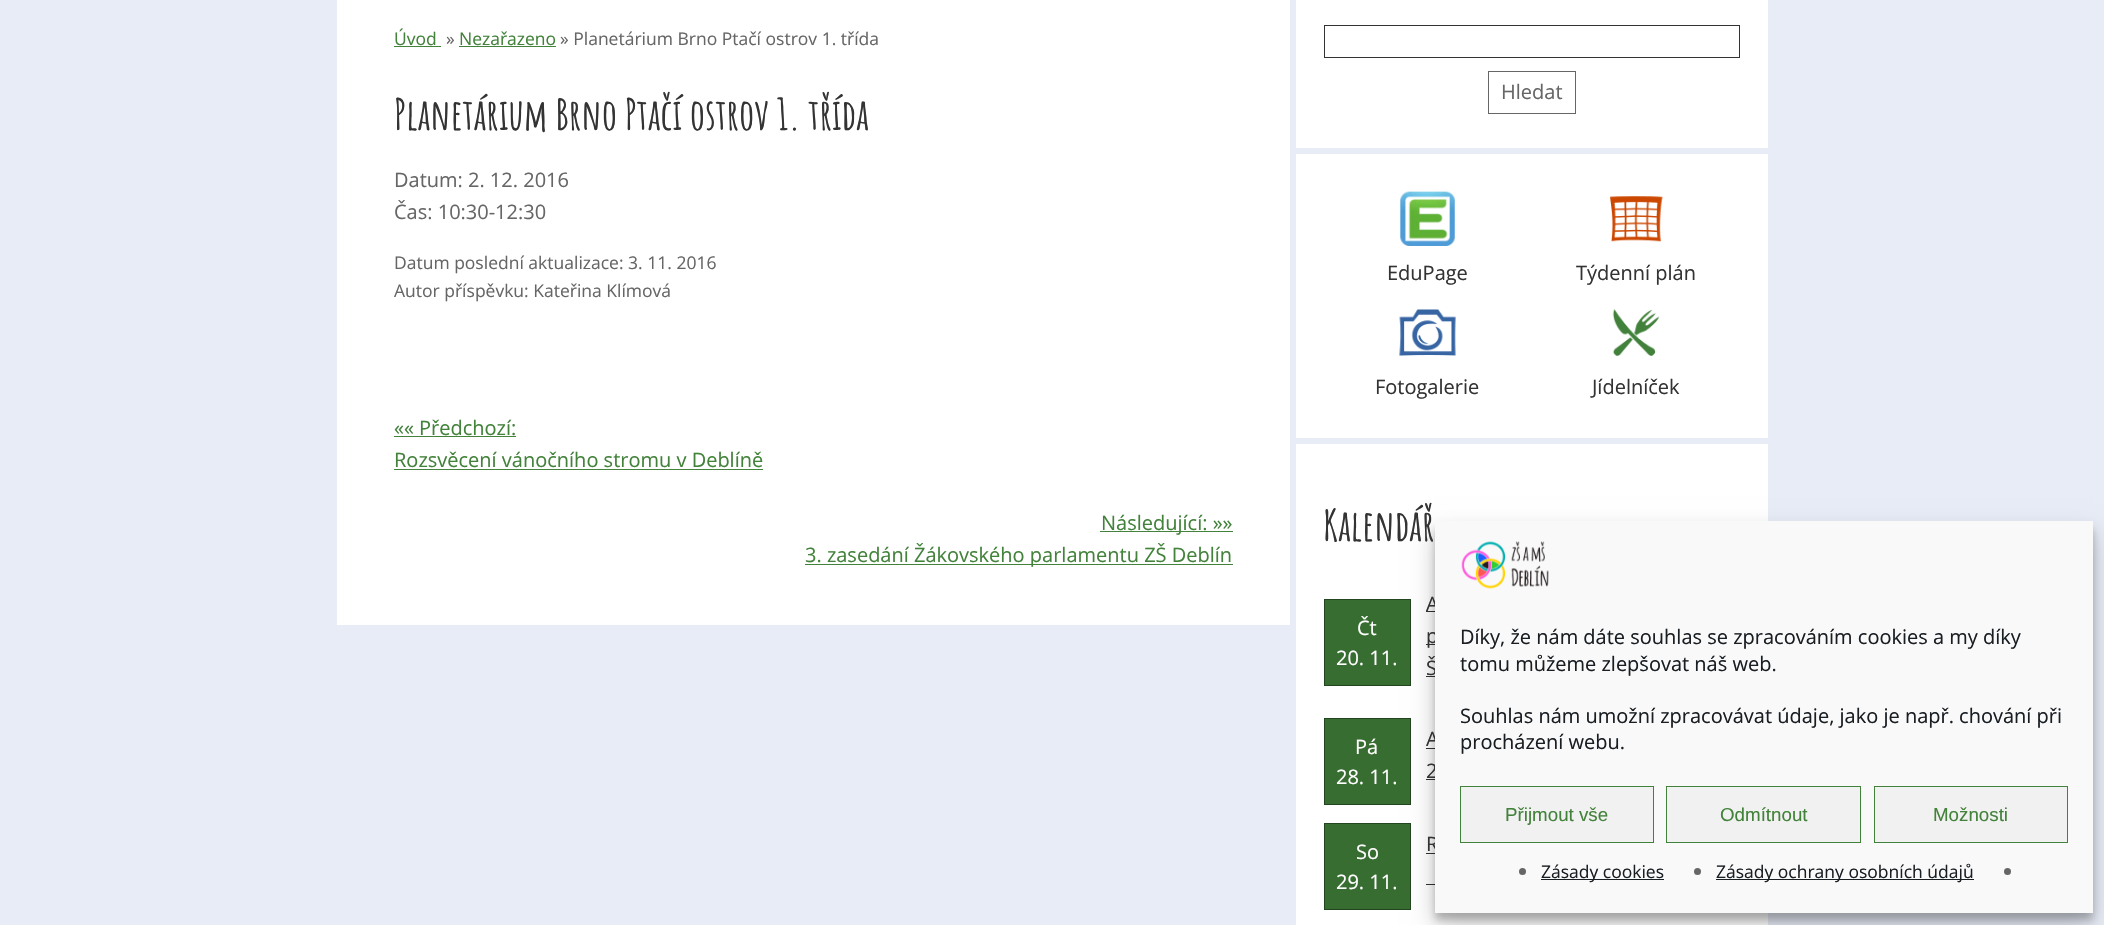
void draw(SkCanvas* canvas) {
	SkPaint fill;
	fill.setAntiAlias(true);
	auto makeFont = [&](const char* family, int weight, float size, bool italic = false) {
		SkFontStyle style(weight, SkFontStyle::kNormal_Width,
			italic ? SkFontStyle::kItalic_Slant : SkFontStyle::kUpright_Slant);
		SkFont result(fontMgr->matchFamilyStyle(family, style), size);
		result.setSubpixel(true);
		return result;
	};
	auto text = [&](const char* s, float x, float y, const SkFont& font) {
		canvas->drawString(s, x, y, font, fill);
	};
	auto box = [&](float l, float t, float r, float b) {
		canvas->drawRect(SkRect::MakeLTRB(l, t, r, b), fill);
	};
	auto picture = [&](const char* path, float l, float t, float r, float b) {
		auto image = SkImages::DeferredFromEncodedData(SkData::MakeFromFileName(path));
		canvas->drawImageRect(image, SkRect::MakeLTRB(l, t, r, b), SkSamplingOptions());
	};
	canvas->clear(0xFFE7ECF6);
	fill.setColor(0xFFFFFFFF);
	box(337, 0, 1290, 625);
	fill.setColor(0xFF42823A);
	box(394, 46, 441, 47);
	box(459, 46, 556, 47);
	box(394, 436, 516, 437);
	box(394, 469, 763, 470);
	box(1100, 531, 1233, 532);
	box(805, 564, 1233, 565);
	fill.setColor(0xFFFFFFFF);
	box(1296, 0, 1768, 148);
	fill.setStyle(SkPaint::kStroke_Style);
	fill.setStrokeWidth(1);
	fill.setColor(0xFF333333);
	canvas->drawRect(SkRect::MakeLTRB(1324.5f, 25.5f, 1739.5f, 57.5f), fill);
	fill.setColor(0xFF666666);
	canvas->drawRect(SkRect::MakeLTRB(1488.5f, 71.5f, 1575.5f, 113.5f), fill);
	fill.setStyle(SkPaint::kFill_Style);
	fill.setColor(0xFFFFFFFF);
	box(1296, 154, 1768, 438);
	picture("image0.png", 1400, 191, 1455, 246);
	picture("image1.png", 1610, 196, 1663, 242);
	picture("image2.png", 1399, 309, 1456, 356);
	picture("image3.png", 1612, 309, 1660, 356);
	box(1296, 444, 1768, 925);
	fill.setColor(0xFF386D32);
	canvas->drawRect(SkRect::MakeLTRB(1324.5f, 599.5f, 1410.5f, 685.5f), fill);
	fill.setStyle(SkPaint::kStroke_Style);
	fill.setColor(0xFF224620);
	canvas->drawRect(SkRect::MakeLTRB(1324.5f, 599.5f, 1410.5f, 685.5f), fill);
	fill.setStyle(SkPaint::kFill_Style);
	fill.setColor(0xFF333333);
	box(1426, 611, 1435, 612);
	box(1426, 644, 1435, 645);
	box(1426, 676, 1435, 677);
	fill.setColor(0xFF386D32);
	canvas->drawRect(SkRect::MakeLTRB(1324.5f, 718.5f, 1410.5f, 804.5f), fill);
	fill.setStyle(SkPaint::kStroke_Style);
	fill.setColor(0xFF224620);
	canvas->drawRect(SkRect::MakeLTRB(1324.5f, 718.5f, 1410.5f, 804.5f), fill);
	fill.setStyle(SkPaint::kFill_Style);
	fill.setColor(0xFF333333);
	box(1426, 748, 1435, 749);
	box(1426, 779, 1435, 780);
	fill.setColor(0xFF386D32);
	canvas->drawRect(SkRect::MakeLTRB(1324.5f, 823.5f, 1410.5f, 909.5f), fill);
	fill.setStyle(SkPaint::kStroke_Style);
	fill.setColor(0xFF224620);
	canvas->drawRect(SkRect::MakeLTRB(1324.5f, 823.5f, 1410.5f, 909.5f), fill);
	fill.setStyle(SkPaint::kFill_Style);
	fill.setColor(0xFF333333);
	box(1426, 853, 1435, 854);
	box(1426, 884, 1435, 885);
	fill.setColor(0x3B000000);
	fill.setMaskFilter(SkMaskFilter::MakeBlur(kNormal_SkBlurStyle, 4));
	canvas->drawRect(SkRect::MakeLTRB(1435, 529, 2093, 920), fill);
	fill.setMaskFilter(nullptr);
	fill.setColor(0x30000000);
	fill.setMaskFilter(SkMaskFilter::MakeBlur(kNormal_SkBlurStyle, 12.5f));
	canvas->drawRect(SkRect::MakeLTRB(1435, 534, 2093, 925), fill);
	fill.setMaskFilter(nullptr);
	auto font1 = makeFont("Open Sans", 400, 17.5f);
	fill.setColor(0xFF42823A);
	text("Úvod", 394, 45, font1);
	fill.setColor(0xFF666666);
	text("»", 446, 45, font1);
	fill.setColor(0xFF42823A);
	text("Nezařazeno", 459, 45, font1);
	fill.setColor(0xFF666666);
	text("» Planetárium Brno Ptačí ostrov 1. třída", 560, 45, font1);
	auto font2 = makeFont("Amatic SC", 700, 42.5f);
	fill.setColor(0xFF333333);
	text("Planetárium Brno Ptačí ostrov 1. třída", 394, 130, font2);
	auto font3 = makeFont("Open Sans", 400, 20);
	fill.setColor(0xFF666666);
	text("Datum: 2. 12. 2016", 394, 187, font3);
	text("Čas: 10:30-12:30", 394, 219, font3);
	text("Datum poslední aktualizace: 3. 11. 2016", 394, 269, font1);
	text("Autor příspěvku: Kateřina Klímová", 394, 297, font1);
	fill.setColor(0xFF42823A);
	text("«« Předchozí:", 394, 435, font3);
	text("Rozsvěcení vánočního stromu v Deblíně", 394, 467, font3);
	text("Následující: »»", 1101, 530, font3);
	text("3. zasedání Žákovského parlamentu ZŠ Deblín", 805, 562, font3);
	fill.setColor(0xFF666666);
	text("Hledat", 1501, 99, font3);
	fill.setColor(0xFF333333);
	text("EduPage", 1387, 280, font3);
	text("Týdenní plán", 1576, 280, font3);
	text("Fotogalerie", 1375, 394, font3);
	text("Jídelníček", 1592, 394, font3);
	text("Kalendář", 1323, 541, font2);
	fill.setColor(0xFFFFFFFF);
	text("Čt", 1357, 635, font3);
	text("20. 11.", 1336, 665, font3);
	fill.setColor(0xFF333333);
	text("A", 1426, 611, font3);
	text("p", 1426, 643, font3);
	text("Š", 1426, 675, font3);
	fill.setColor(0xFFFFFFFF);
	text("Pá", 1355, 754, font3);
	text("28. 11.", 1336, 784, font3);
	fill.setColor(0xFF333333);
	text("A", 1426, 746, font3);
	text("2", 1426, 778, font3);
	fill.setColor(0xFFFFFFFF);
	text("So", 1356, 859, font3);
	text("29. 11.", 1336, 889, font3);
	fill.setColor(0xFF333333);
	text("R", 1426, 851, font3);
	fill.setColor(0xFFF9F9F9);
	box(1435, 521, 2093, 913);
	picture("image4.png", 1461, 541, 1549, 589);
	fill.setColor(0xFF191E23);
	text("Díky, že nám dáte souhlas se zpracováním cookies a my díky", 1460, 644, font3);
	text("tomu můžeme zlepšovat náš web.", 1460, 671, font3);
	text("Souhlas nám umožní zpracovávat údaje, jako je např. chování při", 1460, 723, font3);
	text("procházení webu.", 1460, 749, font3);
	fill.setColor(0xFFF1F1F1);
	canvas->drawRect(SkRect::MakeLTRB(1460.5f, 786.5f, 1653.5f, 842.5f), fill);
	fill.setStyle(SkPaint::kStroke_Style);
	fill.setColor(0xFF42823A);
	canvas->drawRect(SkRect::MakeLTRB(1460.5f, 786.5f, 1653.5f, 842.5f), fill);
	auto font4 = makeFont("Liberation Sans", 400, 18.75f);
	fill.setStyle(SkPaint::kFill_Style);
	text("Přijmout vše", 1505, 821, font4);
	fill.setColor(0xFFF1F1F1);
	canvas->drawRect(SkRect::MakeLTRB(1666.5f, 786.5f, 1860.5f, 842.5f), fill);
	fill.setStyle(SkPaint::kStroke_Style);
	fill.setColor(0xFF42823A);
	canvas->drawRect(SkRect::MakeLTRB(1666.5f, 786.5f, 1860.5f, 842.5f), fill);
	fill.setStyle(SkPaint::kFill_Style);
	text("Odmítnout", 1720, 821, font4);
	fill.setColor(0xFFF1F1F1);
	canvas->drawRect(SkRect::MakeLTRB(1874.5f, 786.5f, 2067.5f, 842.5f), fill);
	fill.setStyle(SkPaint::kStroke_Style);
	fill.setColor(0xFF42823A);
	canvas->drawRect(SkRect::MakeLTRB(1874.5f, 786.5f, 2067.5f, 842.5f), fill);
	fill.setStyle(SkPaint::kFill_Style);
	text("Možnosti", 1933, 821, font4);
	fill.setColor(0xFF666666);
	canvas->drawCircle(1522.5f, 871.5f, 3.5f, fill);
	fill.setColor(0xFF191E23);
	box(1541, 879, 1664, 880);
	text("Zásady cookies", 1541, 878, font1);
	fill.setColor(0xFF666666);
	canvas->drawCircle(1697.5f, 871.5f, 3.5f, fill);
	fill.setColor(0xFF191E23);
	box(1716, 879, 1974, 880);
	text("Zásady ochrany osobních údajů", 1716, 878, font1);
	fill.setColor(0xFF666666);
	canvas->drawCircle(2007.5f, 871.5f, 3.5f, fill);
}
